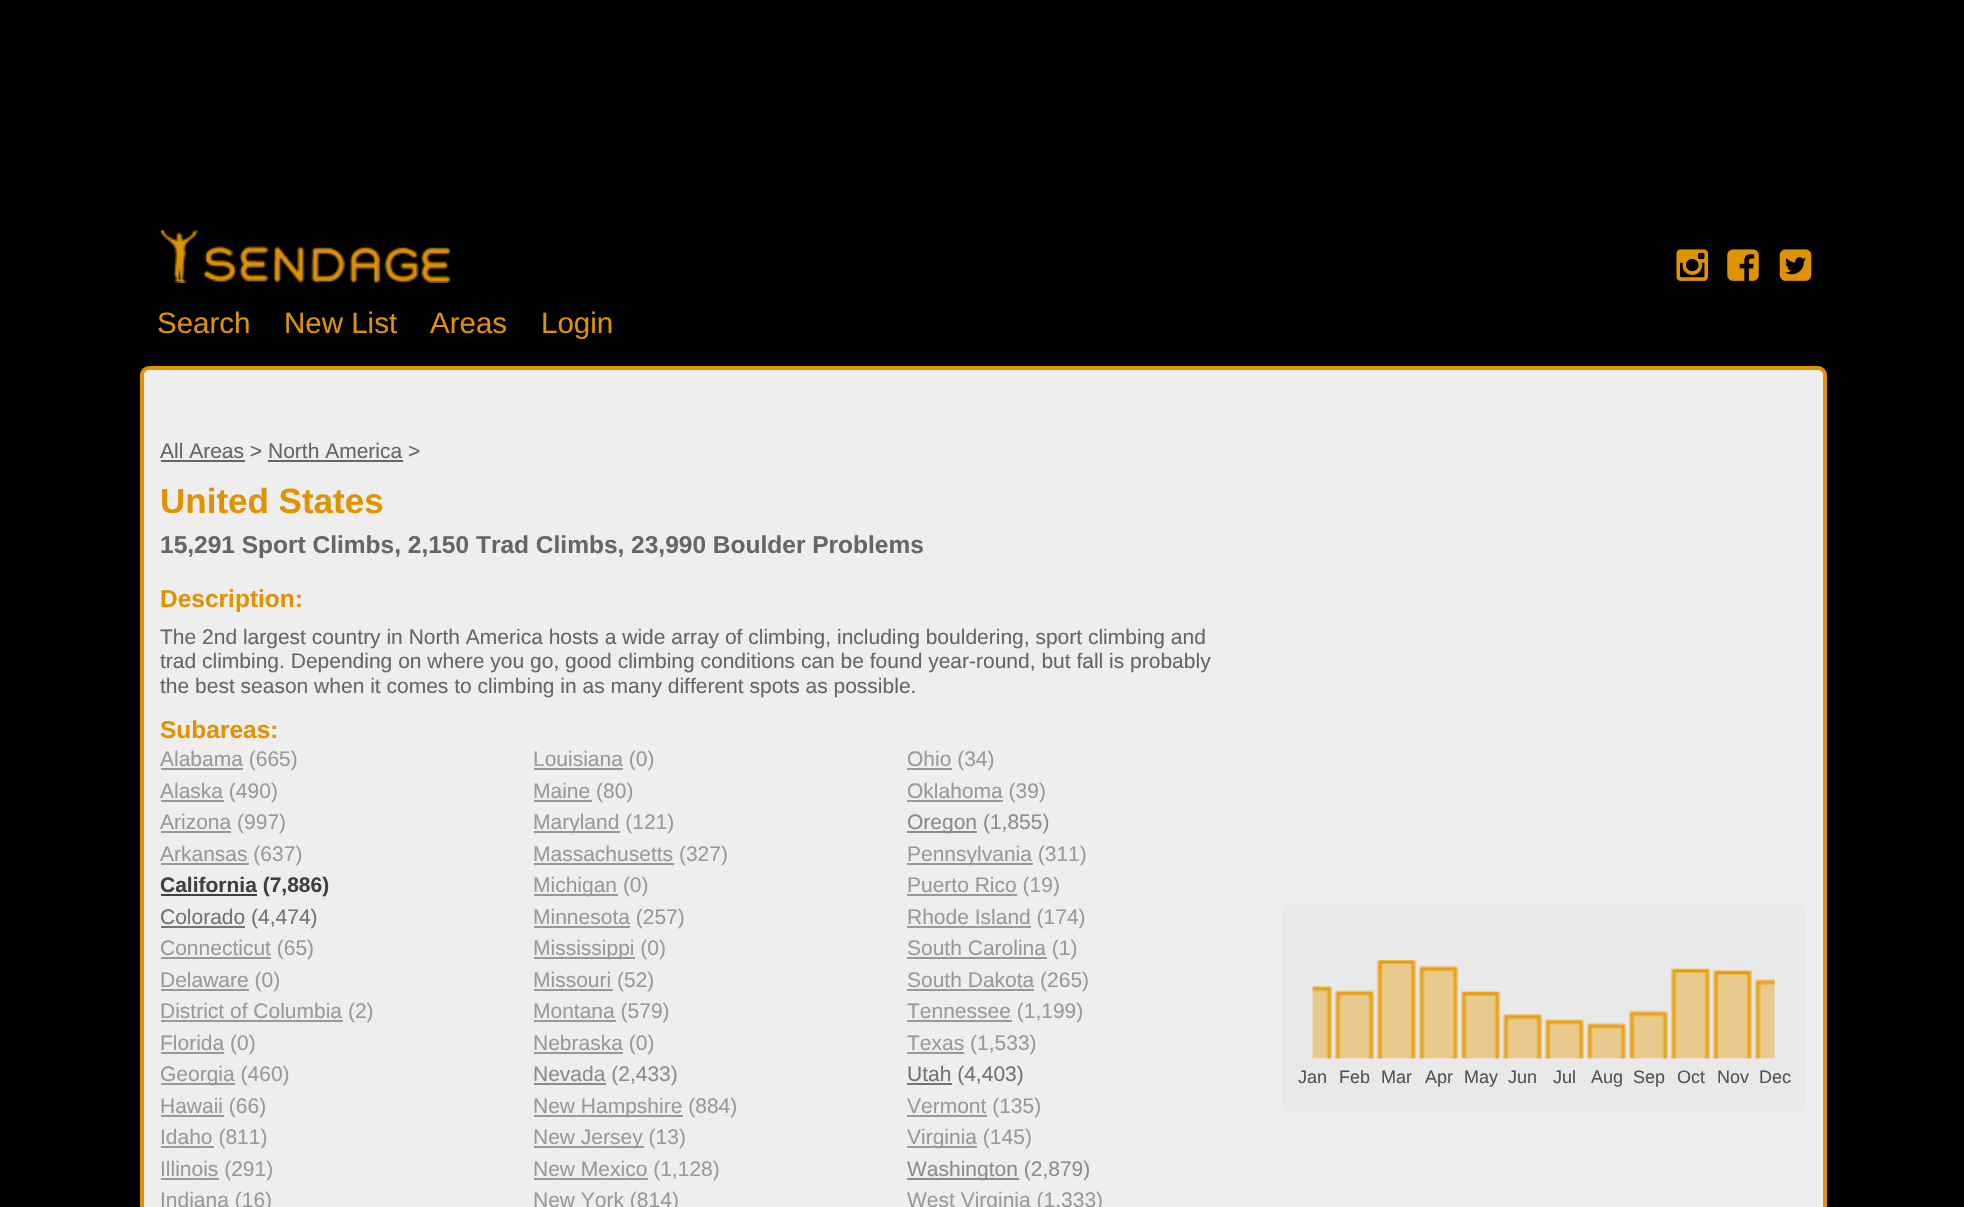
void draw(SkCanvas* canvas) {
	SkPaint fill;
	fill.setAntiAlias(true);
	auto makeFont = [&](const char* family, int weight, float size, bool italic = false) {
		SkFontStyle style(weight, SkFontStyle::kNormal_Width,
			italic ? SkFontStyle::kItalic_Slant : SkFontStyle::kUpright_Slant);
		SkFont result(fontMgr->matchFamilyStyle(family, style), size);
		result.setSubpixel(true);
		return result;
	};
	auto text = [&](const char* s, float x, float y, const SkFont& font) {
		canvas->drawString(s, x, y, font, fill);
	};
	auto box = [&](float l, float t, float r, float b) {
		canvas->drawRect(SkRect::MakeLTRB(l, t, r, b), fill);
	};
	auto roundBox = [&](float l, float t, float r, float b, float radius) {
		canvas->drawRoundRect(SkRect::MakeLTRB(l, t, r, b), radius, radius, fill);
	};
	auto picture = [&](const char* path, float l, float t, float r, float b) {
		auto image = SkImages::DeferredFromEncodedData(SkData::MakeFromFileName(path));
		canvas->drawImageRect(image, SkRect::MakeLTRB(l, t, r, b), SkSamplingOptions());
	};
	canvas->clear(0xFF000000);
	picture("image0.png", 1676, 249, 1708, 281);
	picture("image1.png", 1727, 249, 1759, 281);
	picture("image2.png", 1779, 249, 1812, 281);
	picture("image3.png", 161, 230, 450, 283);
	fill.setColor(0xFFEEEEEE);
	canvas->drawRoundRect(SkRect::MakeLTRB(142, 368, 1825, 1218), 7, 7, fill);
	fill.setStyle(SkPaint::kStroke_Style);
	fill.setStrokeWidth(4);
	fill.setColor(0xFFDF9300);
	canvas->drawRoundRect(SkRect::MakeLTRB(142, 368, 1825, 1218), 7, 7, fill);
	fill.setStyle(SkPaint::kFill_Style);
	fill.setColor(0xFF666666);
	box(161, 460, 245, 462);
	box(268, 460, 403, 462);
	fill.setColor(0xFF999999);
	box(161, 768, 243, 770);
	box(161, 800, 224, 802);
	box(161, 831, 231, 833);
	box(161, 863, 249, 865);
	fill.setColor(0xFF404040);
	box(161, 894, 257, 896);
	fill.setColor(0xFF737373);
	box(161, 926, 245, 928);
	fill.setColor(0xFF999999);
	box(161, 957, 271, 959);
	box(161, 989, 249, 991);
	box(161, 1020, 343, 1022);
	box(161, 1052, 224, 1054);
	box(161, 1083, 235, 1085);
	box(161, 1115, 224, 1117);
	box(161, 1146, 214, 1148);
	box(161, 1178, 219, 1180);
	box(534, 768, 623, 770);
	box(534, 800, 592, 802);
	box(534, 831, 620, 833);
	box(534, 863, 674, 865);
	box(534, 894, 618, 896);
	box(534, 926, 630, 928);
	box(534, 957, 635, 959);
	box(534, 989, 613, 991);
	box(534, 1020, 616, 1022);
	box(534, 1052, 623, 1054);
	fill.setColor(0xFF8C8C8C);
	box(534, 1083, 606, 1085);
	fill.setColor(0xFF999999);
	box(534, 1115, 683, 1117);
	box(534, 1146, 644, 1148);
	box(534, 1178, 648, 1180);
	box(907, 768, 952, 770);
	box(907, 800, 1003, 802);
	fill.setColor(0xFF8C8C8C);
	box(907, 831, 977, 833);
	fill.setColor(0xFF999999);
	box(907, 863, 1033, 865);
	box(907, 894, 1017, 896);
	box(907, 926, 1031, 928);
	box(907, 957, 1047, 959);
	box(907, 989, 1034, 991);
	box(907, 1020, 1012, 1022);
	box(907, 1052, 964, 1054);
	fill.setColor(0xFF737373);
	box(907, 1083, 952, 1085);
	fill.setColor(0xFF999999);
	box(907, 1115, 987, 1117);
	box(907, 1146, 977, 1148);
	fill.setColor(0xFF8C8C8C);
	box(907, 1178, 1019, 1180);
	fill.setColor(0xFFE9E9E9);
	roundBox(1281, 903, 1806, 1113, 9);
	picture("image4.png", 1312, 959, 1775, 1059);
	auto font1 = makeFont("Liberation Sans", 400, 29.5f);
	fill.setColor(0xFFDF9300);
	text("Search", 157, 333, font1);
	text("New List", 284, 333, font1);
	text("Areas", 430, 333, font1);
	text("Login", 541, 333, font1);
	auto font2 = makeFont("Liberation Sans", 400, 21);
	fill.setColor(0xFF666666);
	text("All Areas > North America >", 160, 458, font2);
	auto font3 = makeFont("Liberation Sans", 700, 35);
	fill.setColor(0xFFDF9300);
	text("United States", 160, 513, font3);
	auto font4 = makeFont("Liberation Sans", 700, 24.5f);
	fill.setColor(0xFF666666);
	text("15,291 Sport Climbs, 2,150 Trad Climbs, 23,990 Boulder Problems", 160, 553, font4);
	fill.setColor(0xFFDF9300);
	text("Description:", 160, 607, font4);
	fill.setColor(0xFF666666);
	text("The 2nd largest country in North America hosts a wide array of climbing, including bouldering, sport climbing and", 160, 644, font2);
	text("trad climbing. Depending on where you go, good climbing conditions can be found year-round, but fall is probably", 160, 668, font2);
	text("the best season when it comes to climbing in as many different spots as possible.", 160, 693, font2);
	fill.setColor(0xFFDF9300);
	text("Subareas:", 160, 738, font4);
	fill.setColor(0xFF999999);
	text("Alabama (665)", 160, 766, font2);
	text("Alaska (490)", 160, 798, font2);
	text("Arizona (997)", 160, 829, font2);
	text("Arkansas (637)", 160, 861, font2);
	auto font5 = makeFont("Liberation Sans", 700, 21);
	fill.setColor(0xFF404040);
	text("California (7,886)", 160, 892, font5);
	fill.setColor(0xFF737373);
	text("Colorado (4,474)", 160, 924, font2);
	fill.setColor(0xFF999999);
	text("Connecticut (65)", 160, 955, font2);
	text("Delaware (0)", 160, 987, font2);
	text("District of Columbia (2)", 160, 1018, font2);
	text("Florida (0)", 160, 1050, font2);
	text("Georgia (460)", 160, 1081, font2);
	text("Hawaii (66)", 160, 1113, font2);
	text("Idaho (811)", 160, 1144, font2);
	text("Illinois (291)", 160, 1176, font2);
	text("Indiana (16)", 160, 1207, font2);
	text("Louisiana (0)", 533, 766, font2);
	text("Maine (80)", 533, 798, font2);
	text("Maryland (121)", 533, 829, font2);
	text("Massachusetts (327)", 533, 861, font2);
	text("Michigan (0)", 533, 892, font2);
	text("Minnesota (257)", 533, 924, font2);
	text("Mississippi (0)", 533, 955, font2);
	text("Missouri (52)", 533, 987, font2);
	text("Montana (579)", 533, 1018, font2);
	text("Nebraska (0)", 533, 1050, font2);
	fill.setColor(0xFF8C8C8C);
	text("Nevada (2,433)", 533, 1081, font2);
	fill.setColor(0xFF999999);
	text("New Hampshire (884)", 533, 1113, font2);
	text("New Jersey (13)", 533, 1144, font2);
	text("New Mexico (1,128)", 533, 1176, font2);
	text("New York (814)", 533, 1207, font2);
	text("Ohio (34)", 907, 766, font2);
	text("Oklahoma (39)", 907, 798, font2);
	fill.setColor(0xFF8C8C8C);
	text("Oregon (1,855)", 907, 829, font2);
	fill.setColor(0xFF999999);
	text("Pennsylvania (311)", 907, 861, font2);
	text("Puerto Rico (19)", 907, 892, font2);
	text("Rhode Island (174)", 907, 924, font2);
	text("South Carolina (1)", 907, 955, font2);
	text("South Dakota (265)", 907, 987, font2);
	text("Tennessee (1,199)", 907, 1018, font2);
	text("Texas (1,533)", 907, 1050, font2);
	fill.setColor(0xFF737373);
	text("Utah (4,403)", 907, 1081, font2);
	fill.setColor(0xFF999999);
	text("Vermont (135)", 907, 1113, font2);
	text("Virginia (145)", 907, 1144, font2);
	fill.setColor(0xFF8C8C8C);
	text("Washington (2,879)", 907, 1176, font2);
	fill.setColor(0xFF999999);
	text("West Virginia (1,333)", 907, 1207, font2);
	auto font6 = makeFont("Liberation Sans", 400, 18);
	fill.setColor(0xFF545454);
	text("Jan", 1298, 1083, font6);
	text("Feb", 1339, 1083, font6);
	text("Mar", 1381, 1083, font6);
	text("Apr", 1425, 1083, font6);
	text("May", 1464, 1083, font6);
	text("Jun", 1508, 1083, font6);
	text("Jul", 1553, 1083, font6);
	text("Aug", 1591, 1083, font6);
	text("Sep", 1633, 1083, font6);
	text("Oct", 1677, 1083, font6);
	text("Nov", 1717, 1083, font6);
	text("Dec", 1759, 1083, font6);
}
